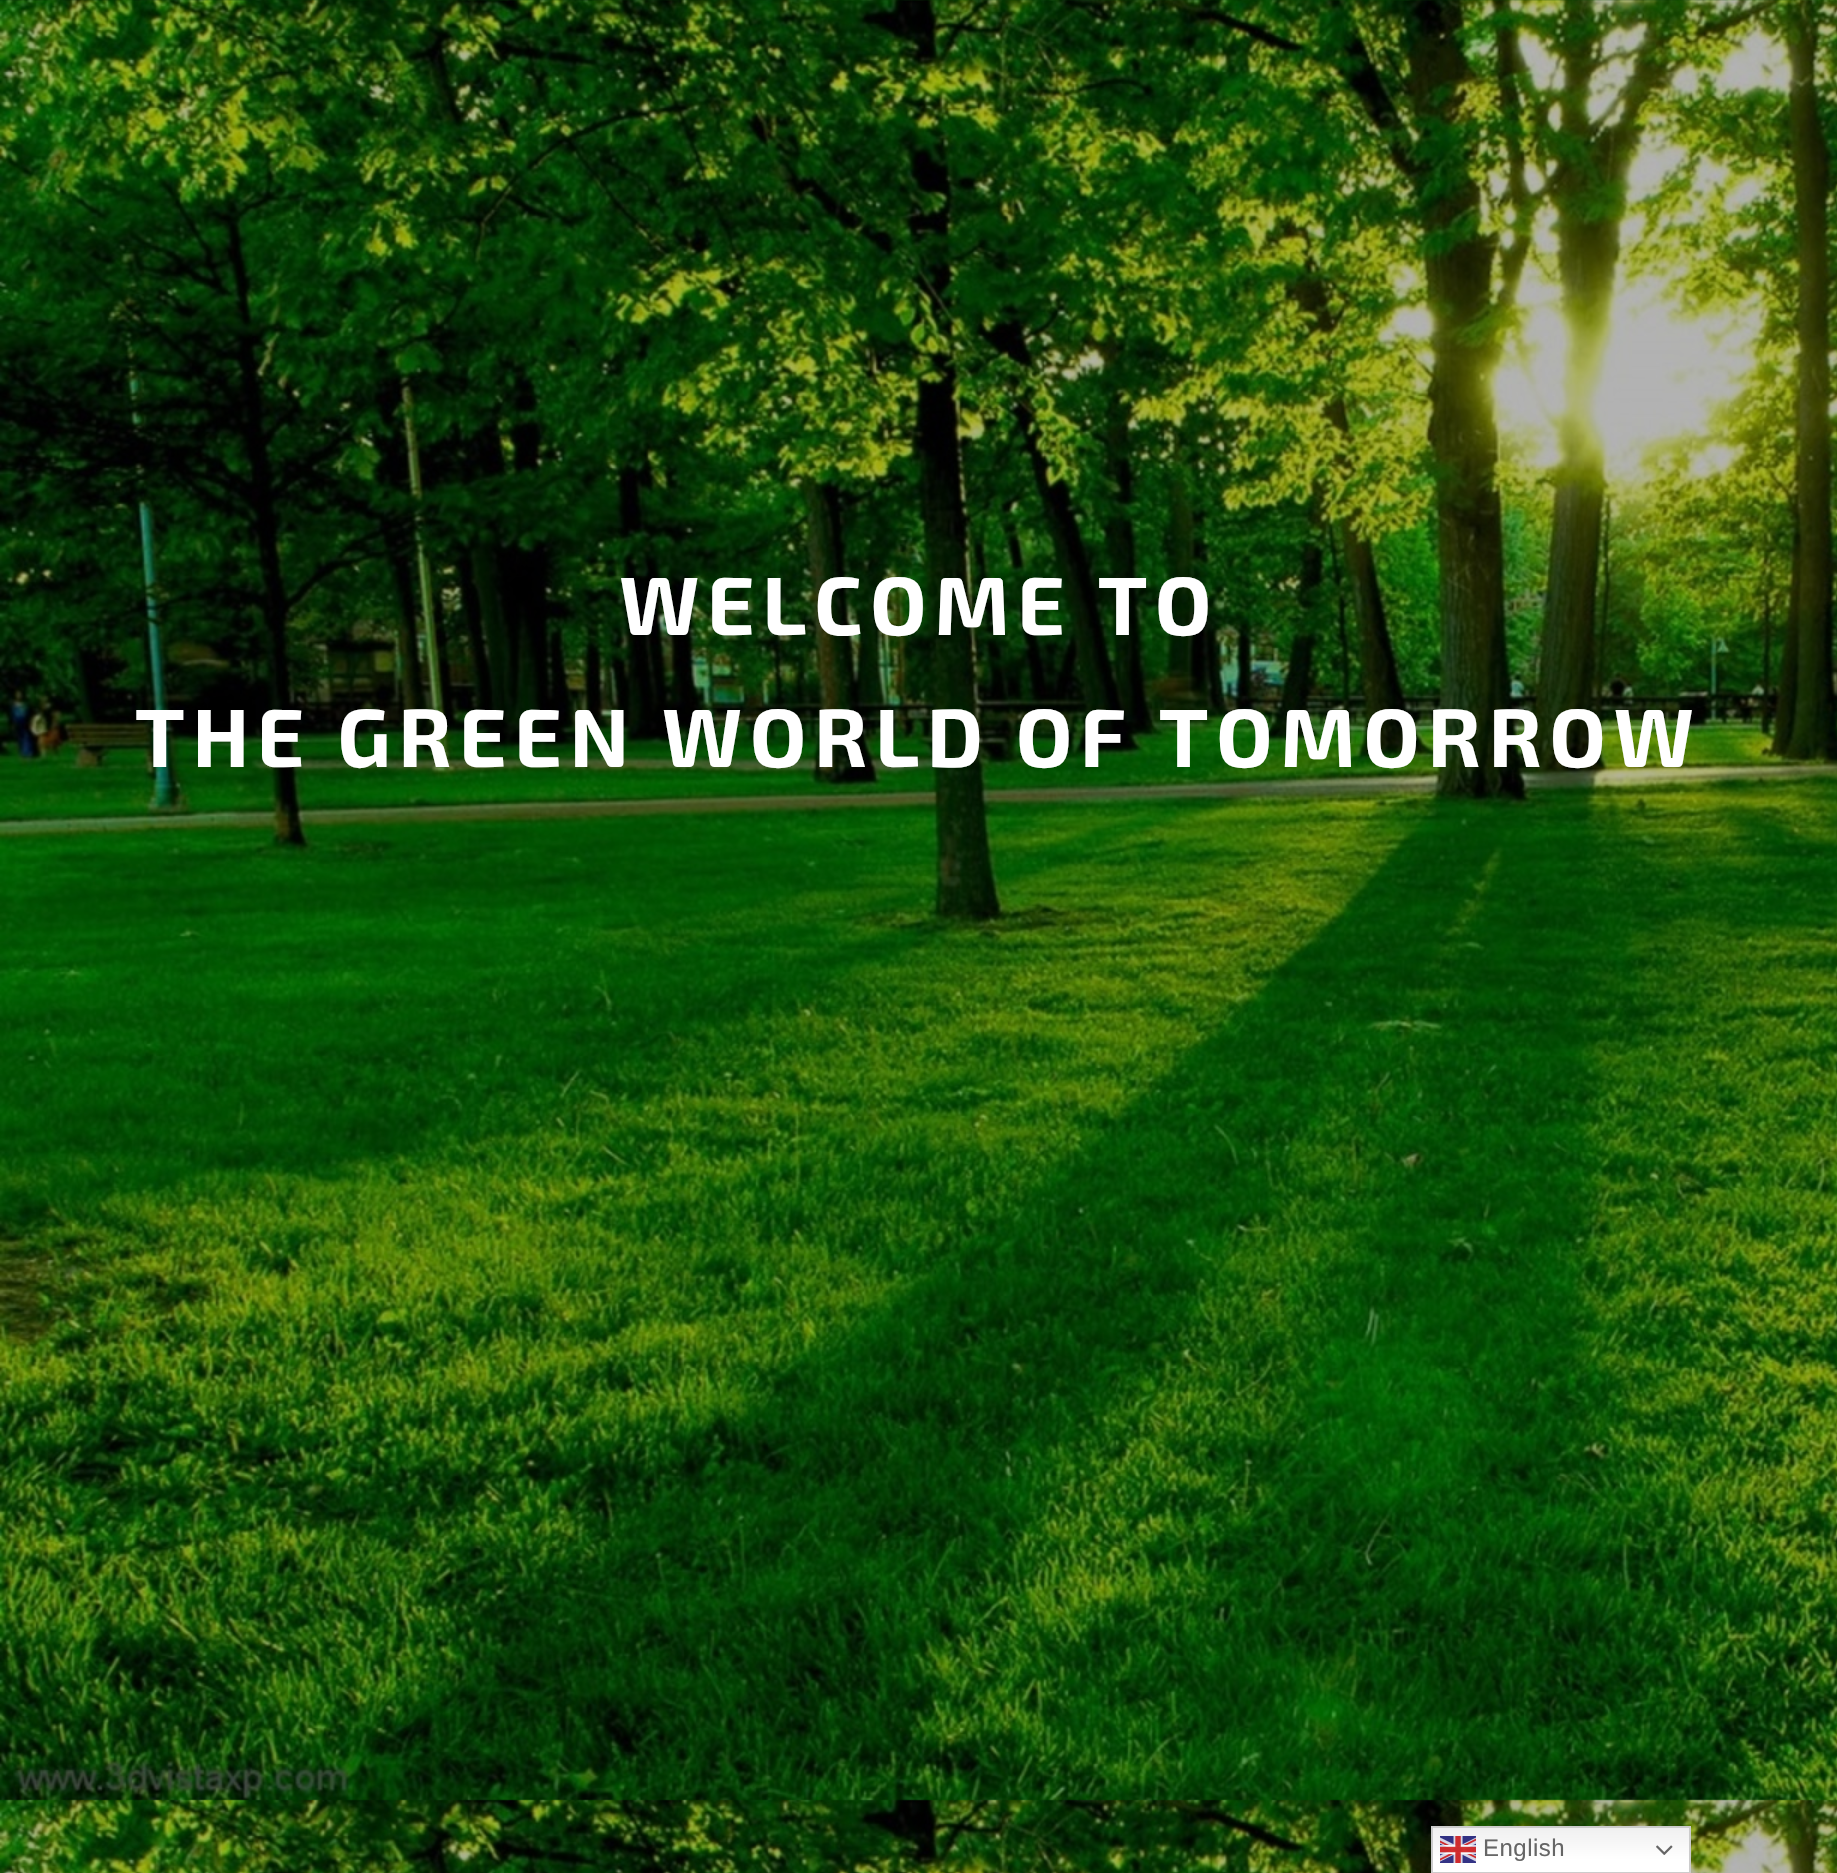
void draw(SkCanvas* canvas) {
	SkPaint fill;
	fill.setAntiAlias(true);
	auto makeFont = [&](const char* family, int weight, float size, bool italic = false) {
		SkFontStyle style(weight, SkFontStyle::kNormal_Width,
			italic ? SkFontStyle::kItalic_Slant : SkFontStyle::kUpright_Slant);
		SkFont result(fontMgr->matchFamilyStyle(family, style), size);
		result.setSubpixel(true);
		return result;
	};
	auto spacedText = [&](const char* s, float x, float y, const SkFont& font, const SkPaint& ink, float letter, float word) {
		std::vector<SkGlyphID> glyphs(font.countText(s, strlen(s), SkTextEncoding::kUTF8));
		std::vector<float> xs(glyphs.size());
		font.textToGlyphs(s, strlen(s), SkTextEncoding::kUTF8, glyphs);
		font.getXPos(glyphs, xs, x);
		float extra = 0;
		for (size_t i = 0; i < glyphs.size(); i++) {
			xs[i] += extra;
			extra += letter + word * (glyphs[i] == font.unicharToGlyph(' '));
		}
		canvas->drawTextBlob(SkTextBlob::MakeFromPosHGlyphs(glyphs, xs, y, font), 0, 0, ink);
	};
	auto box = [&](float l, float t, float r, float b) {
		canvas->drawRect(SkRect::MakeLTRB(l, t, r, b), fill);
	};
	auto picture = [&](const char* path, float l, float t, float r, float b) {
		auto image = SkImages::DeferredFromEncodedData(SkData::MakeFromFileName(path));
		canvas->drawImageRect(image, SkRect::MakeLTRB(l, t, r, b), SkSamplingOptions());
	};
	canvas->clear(0xFFFFFFFF);
	picture("image0.png", 0, 0, 1837, 1873);
	{
		const SkColor colors[] = {0xFFEFEFEF, 0xFFFFFFFF};
		const float stops[] = {0, 0.7f};
		const SkPoint ends[] = {{1561, 1826}, {1561, 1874}};
		fill.setShader(SkGradientShader::MakeLinear(ends, colors, stops, 2, SkTileMode::kClamp));
		fill.setAlpha(255);
	}
	box(1433, 1828, 1689, 1872);
	fill.setStyle(SkPaint::kStroke_Style);
	fill.setStrokeWidth(2);
	fill.setShader(nullptr);
	fill.setColor(0xFFCCCCCC);
	canvas->drawRect(SkRect::MakeLTRB(1432, 1827, 1690, 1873), fill);
	picture("image1.png", 1440, 1836, 1476, 1863);
	picture("image2.png", 1656, 1845, 1673, 1855);
	auto font1 = makeFont("Exo 2", 700, 82.5f);
	fill.setStyle(SkPaint::kFill_Style);
	fill.setColor(0xFFFFFFFF);
	spacedText("WELCOME TO", 619, 635, font1, fill, 7.5f, 0);
	spacedText("THE GREEN WORLD OF TOMORROW", 135, 767, font1, fill, 7.5f, 0);
	auto font2 = makeFont("Liberation Sans", 400, 24);
	fill.setColor(0xFF666666);
	spacedText("English", 1483, 1856, font2, fill, 0.5f, 0);
}
